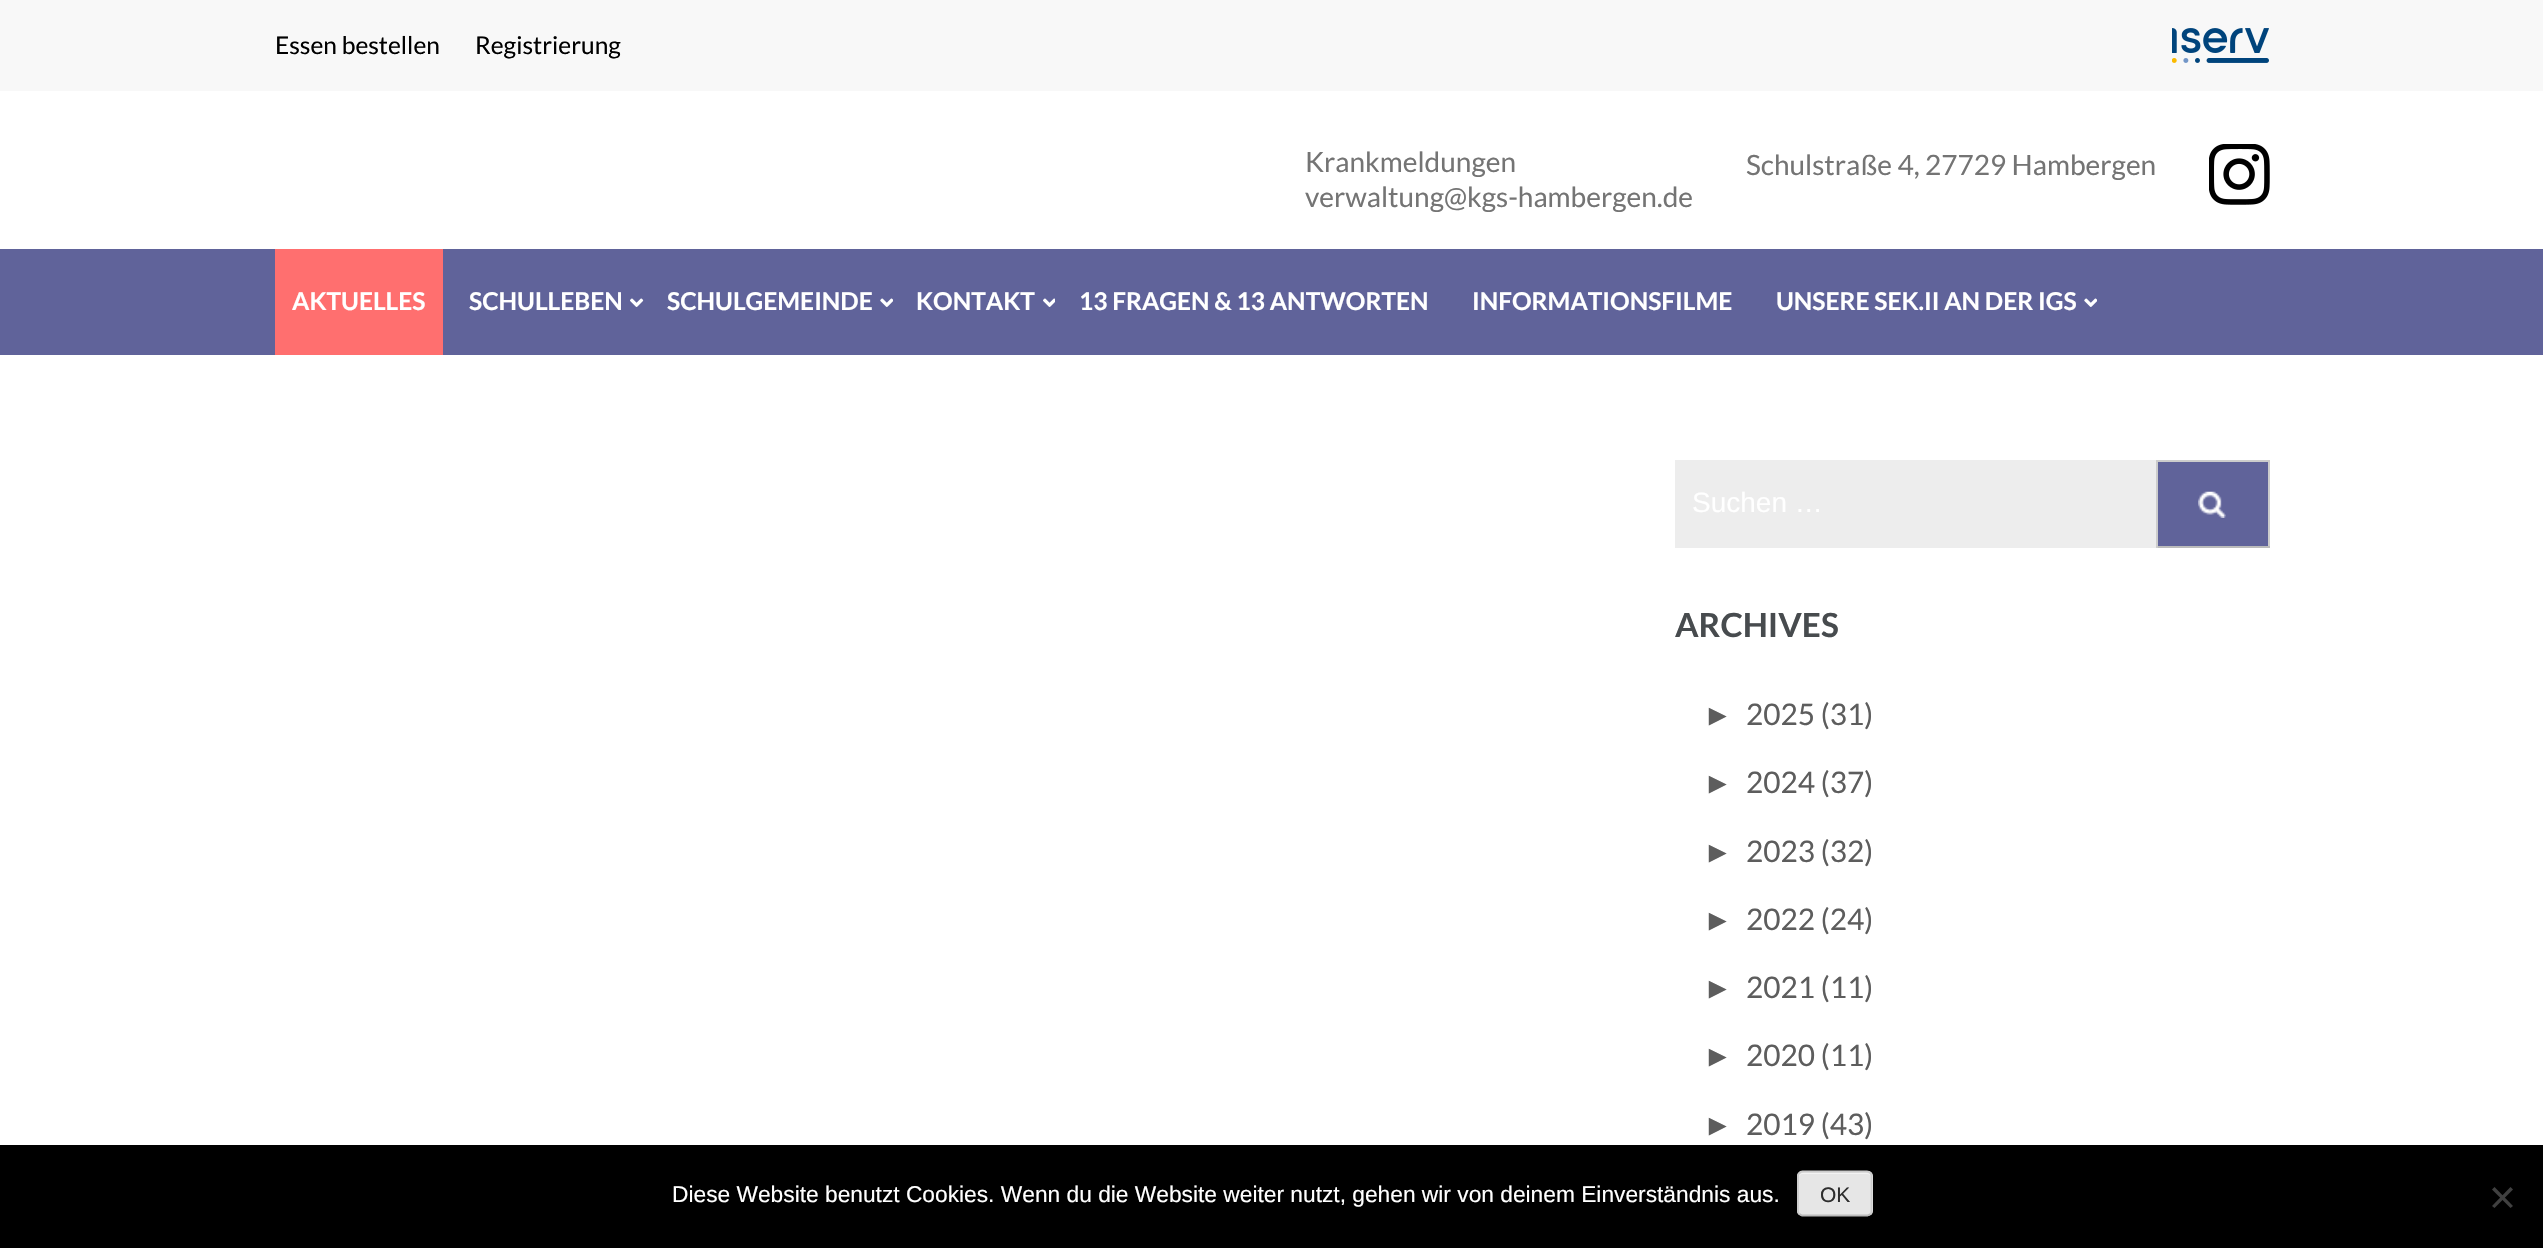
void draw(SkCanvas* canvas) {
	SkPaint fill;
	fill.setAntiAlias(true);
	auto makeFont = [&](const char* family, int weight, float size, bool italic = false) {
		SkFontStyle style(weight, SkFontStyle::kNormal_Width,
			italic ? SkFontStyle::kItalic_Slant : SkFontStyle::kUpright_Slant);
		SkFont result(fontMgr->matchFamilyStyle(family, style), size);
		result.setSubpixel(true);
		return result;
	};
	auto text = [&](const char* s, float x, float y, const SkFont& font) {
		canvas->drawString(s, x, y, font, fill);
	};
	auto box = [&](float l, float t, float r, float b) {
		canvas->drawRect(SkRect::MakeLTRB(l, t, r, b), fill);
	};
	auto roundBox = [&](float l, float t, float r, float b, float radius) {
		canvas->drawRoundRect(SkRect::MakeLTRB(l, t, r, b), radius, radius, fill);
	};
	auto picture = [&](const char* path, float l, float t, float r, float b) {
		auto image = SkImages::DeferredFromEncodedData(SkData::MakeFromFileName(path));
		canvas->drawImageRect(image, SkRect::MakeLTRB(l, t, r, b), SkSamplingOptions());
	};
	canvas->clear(0xFFFFFFFF);
	fill.setColor(0xFFF8F8F8);
	box(0, 0, 2543, 91);
	picture("image0.png", 2172, 28, 2269, 63);
	picture("image1.png", 2209, 144, 2270, 205);
	fill.setColor(0xFF60639A);
	box(0, 249, 2543, 355);
	fill.setColor(0xFFFF6F6F);
	box(275, 249, 443, 355);
	picture("image2.png", 630, 298, 644, 307);
	picture("image3.png", 880, 298, 893, 307);
	picture("image4.png", 1043, 298, 1055, 307);
	picture("image3.png", 2084, 298, 2097, 307);
	fill.setColor(0xFFEDEDED);
	box(1675, 460, 2156, 548);
	fill.setColor(0xFF60639A);
	box(2158, 462, 2268, 546);
	picture("image5.png", 2198, 491, 2226, 518);
	fill.setColor(0xFFCCCCCC);
	box(2156, 460, 2270, 462);
	box(2268, 460, 2270, 548);
	fill.setColor(0xFFBBBBBB);
	box(2156, 546, 2270, 548);
	fill.setColor(0xFFCCCCCC);
	box(2156, 460, 2158, 548);
	fill.setColor(0xFF000000);
	box(0, 1145, 2543, 1248);
	fill.setColor(0xFFE6E6E6);
	roundBox(1797, 1171, 1873, 1216, 5);
	fill.setColor(0xFFF3F3F3);
	canvas->drawPath(SkPathBuilder().moveTo(1802, 1174).lineTo(1867, 1174).cubicTo(1869, 1174, 1871, 1176, 1871, 1178).cubicTo(1871, 1170, 1861, 1173, 1856, 1173).lineTo(1814, 1173).cubicTo(1809, 1173, 1799, 1170, 1799, 1178).cubicTo(1799, 1176, 1801, 1174, 1802, 1174).close().detach(), fill);
	fill.setStyle(SkPaint::kStroke_Style);
	fill.setStrokeWidth(1.8f);
	fill.setColor(0xFFBBBBBB);
	canvas->drawPath(SkPathBuilder().moveTo(1870.5f, 1214).lineTo(1867.5f, 1215.5f).lineTo(1802, 1215.5f).lineTo(1799.5f, 1214).detach(), fill);
	fill.setColor(0xFFCCCCCC);
	canvas->drawPath(SkPathBuilder().moveTo(1799.5f, 1214).cubicTo(1798.5f, 1213.5f, 1798, 1212, 1798, 1211).lineTo(1798, 1176).cubicTo(1798, 1175, 1798.5f, 1173.5f, 1799.5f, 1173).cubicTo(1800, 1172, 1801.5f, 1171.5f, 1802.5f, 1171.5f).lineTo(1867, 1171.5f).cubicTo(1868.5f, 1171.5f, 1869.5f, 1172, 1870.5f, 1173).cubicTo(1871, 1173.5f, 1871.5f, 1175, 1871.5f, 1176).lineTo(1871.5f, 1211).cubicTo(1871.5f, 1212, 1871, 1213.5f, 1870.5f, 1214).detach(), fill);
	fill.setStyle(SkPaint::kFill_Style);
	fill.setColor(0xFF404040);
	canvas->drawPath(SkPathBuilder().moveTo(2510.5f, 1187).lineTo(2513, 1189.5f).lineTo(2494.5f, 1208).lineTo(2492, 1206).close().detach(), fill);
	canvas->drawPath(SkPathBuilder().moveTo(2492, 1189.5f).lineTo(2494.5f, 1187).lineTo(2513, 1206).lineTo(2510.5f, 1208).close().detach(), fill);
	auto font1 = makeFont("Lato", 400, 24.5f);
	fill.setColor(0xFF000000);
	text("Essen bestellen", 275, 54, font1);
	text("Registrierung", 475, 54, font1);
	auto font2 = makeFont("Lato", 400, 28);
	fill.setColor(0xFF747474);
	text("Krankmeldungen", 1305, 172, font2);
	text("verwaltung@kgs-hambergen.de", 1305, 207, font2);
	text("Schulstraße 4, 27729 Hambergen", 1746, 175, font2);
	auto font3 = makeFont("Lato", 700, 24.5f);
	fill.setColor(0xFFFFFFFF);
	text("AKTUELLES", 292, 310, font3);
	text("SCHULLEBEN", 469, 310, font3);
	text("SCHULGEMEINDE", 667, 310, font3);
	text("KONTAKT", 916, 310, font3);
	text("13 FRAGEN & 13 ANTWORTEN", 1079, 310, font3);
	text("INFORMATIONSFILME", 1472, 310, font3);
	text("UNSERE SEK.II AN DER IGS", 1776, 310, font3);
	auto font4 = makeFont("Liberation Sans", 400, 28);
	text("Suchen …", 1692, 512, font4);
	auto font5 = makeFont("Lato", 700, 33.25f);
	fill.setColor(0xFF474B4E);
	text("ARCHIVES", 1675, 637, font5);
	auto font6 = makeFont("Liberation Sans", 400, 29.75f);
	fill.setColor(0xFF5D5D5D);
	text("►", 1703, 725, font6);
	auto font7 = makeFont("Lato", 400, 29.75f);
	text("2025 (31)", 1746, 725, font7);
	text("►", 1703, 793, font6);
	text("2024 (37)", 1746, 793, font7);
	text("►", 1703, 862, font6);
	text("2023 (32)", 1746, 862, font7);
	text("►", 1703, 930, font6);
	text("2022 (24)", 1746, 930, font7);
	text("►", 1703, 998, font6);
	text("2021 (11)", 1746, 998, font7);
	text("►", 1703, 1066, font6);
	text("2020 (11)", 1746, 1066, font7);
	text("►", 1703, 1135, font6);
	text("2019 (43)", 1746, 1135, font7);
	auto font8 = makeFont("Liberation Sans", 400, 22.75f);
	fill.setColor(0xFFFFFFFF);
	text("Diese Website benutzt Cookies. Wenn du die Website weiter nutzt, gehen wir von deinem Einverständnis aus.", 672, 1202, font8);
	auto font9 = makeFont("Liberation Sans", 400, 21);
	fill.setColor(0xFF2E2E2E);
	text("OK", 1820, 1202, font9);
}
